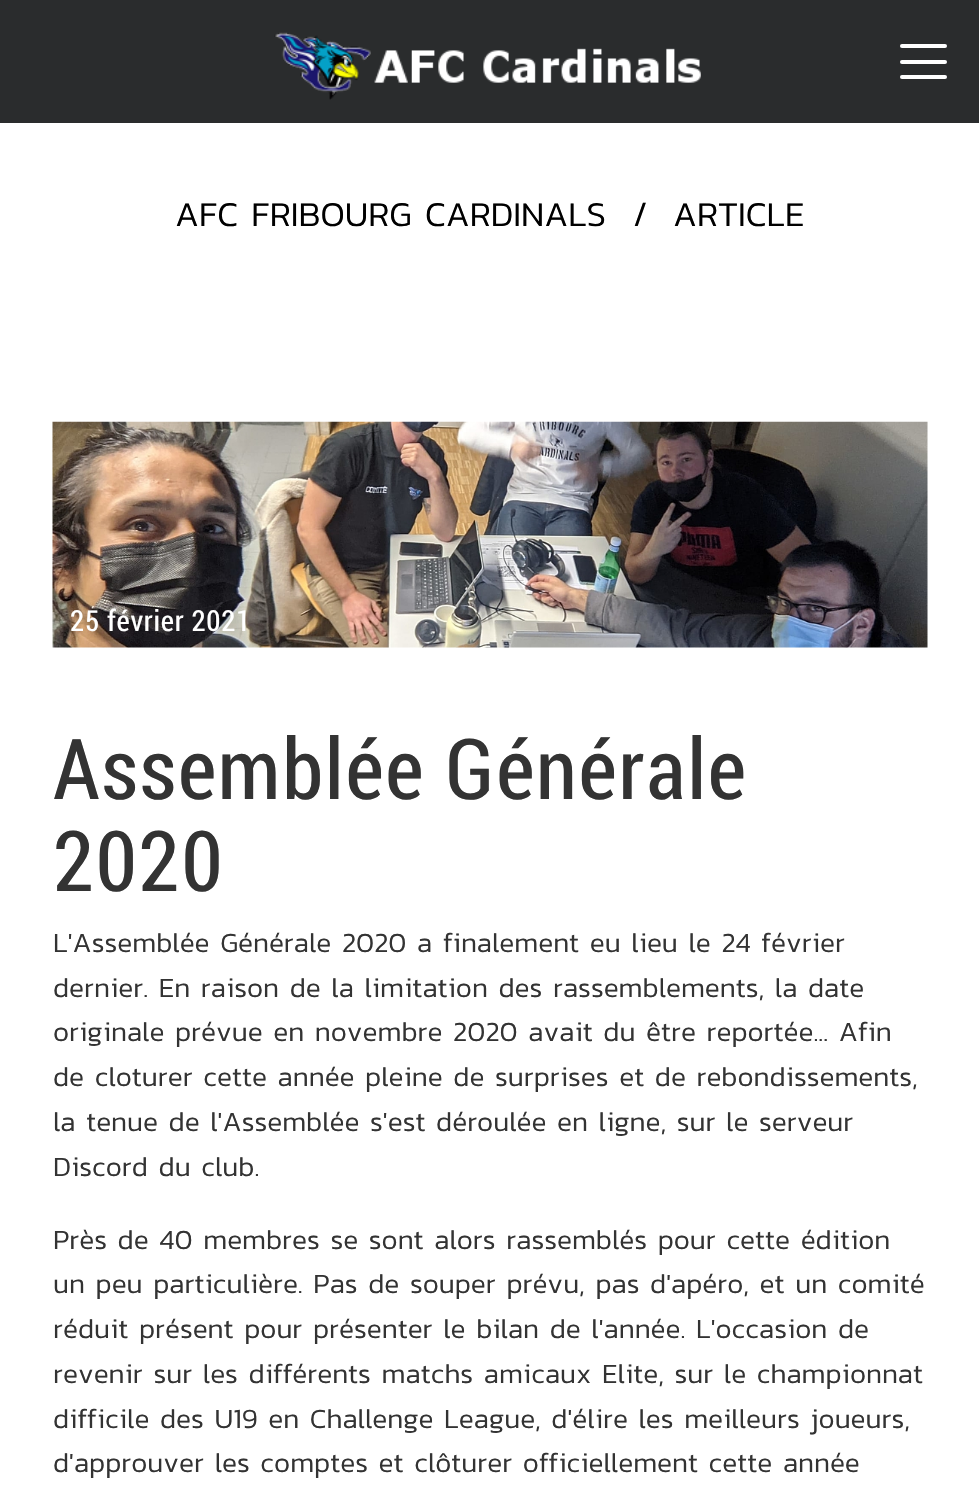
void draw(SkCanvas* canvas) {
	SkPaint fill;
	fill.setAntiAlias(true);
	auto makeFont = [&](const char* family, int weight, float size, bool italic = false) {
		SkFontStyle style(weight, SkFontStyle::kNormal_Width,
			italic ? SkFontStyle::kItalic_Slant : SkFontStyle::kUpright_Slant);
		SkFont result(fontMgr->matchFamilyStyle(family, style), size);
		result.setSubpixel(true);
		return result;
	};
	auto text = [&](const char* s, float x, float y, const SkFont& font) {
		canvas->drawString(s, x, y, font, fill);
	};
	auto spacedText = [&](const char* s, float x, float y, const SkFont& font, const SkPaint& ink, float letter, float word) {
		std::vector<SkGlyphID> glyphs(font.countText(s, strlen(s), SkTextEncoding::kUTF8));
		std::vector<float> xs(glyphs.size());
		font.textToGlyphs(s, strlen(s), SkTextEncoding::kUTF8, glyphs);
		font.getXPos(glyphs, xs, x);
		float extra = 0;
		for (size_t i = 0; i < glyphs.size(); i++) {
			xs[i] += extra;
			extra += letter + word * (glyphs[i] == font.unicharToGlyph(' '));
		}
		canvas->drawTextBlob(SkTextBlob::MakeFromPosHGlyphs(glyphs, xs, y, font), 0, 0, ink);
	};
	auto box = [&](float l, float t, float r, float b) {
		canvas->drawRect(SkRect::MakeLTRB(l, t, r, b), fill);
	};
	auto roundBox = [&](float l, float t, float r, float b, float radius) {
		canvas->drawRoundRect(SkRect::MakeLTRB(l, t, r, b), radius, radius, fill);
	};
	auto picture = [&](const char* path, float l, float t, float r, float b) {
		auto image = SkImages::DeferredFromEncodedData(SkData::MakeFromFileName(path));
		canvas->drawImageRect(image, SkRect::MakeLTRB(l, t, r, b), SkSamplingOptions());
	};
	canvas->clear(0xFFFFFFFF);
	fill.setColor(0xFF2A2C2D);
	box(0, 0, 979, 123);
	picture("image0.png", 274, 32, 701, 100);
	fill.setColor(0xFFFFFFFF);
	roundBox(900, 44, 947, 48, 2);
	roundBox(900, 60, 947, 64, 2);
	roundBox(900, 75, 947, 79, 2);
	picture("image1.png", 52, 421, 928, 648);
	auto font1 = makeFont("Kanit", 300, 35);
	fill.setColor(0xFF000000);
	text("AFC FRIBOURG CARDINALS", 175, 226, font1);
	text("/", 633, 226, font1);
	text("ARTICLE", 673, 226, font1);
	auto font2 = makeFont("Roboto Condensed", 400, 29);
	fill.setColor(0xFFFFFFFF);
	spacedText("25 février 2021", 70, 631, font2, fill, 0.75f, 0);
	auto font3 = makeFont("Roboto Condensed", 400, 84);
	fill.setColor(0xFF333333);
	spacedText("Assemblée Générale", 53, 799, font3, fill, 1.75f, 0);
	spacedText("2020", 53, 891, font3, fill, 1.75f, 0);
	auto font4 = makeFont("Kanit", 300, 28);
	text("L'Assemblée Générale 2020 a finalement eu lieu le 24 février", 53, 952, font4);
	text("dernier. En raison de la limitation des rassemblements, la date", 53, 997, font4);
	text("originale prévue en novembre 2020 avait du être reportée... Afin", 53, 1041, font4);
	text("de cloturer cette année pleine de surprises et de rebondissements,", 53, 1086, font4);
	text("la tenue de l'Assemblée s'est déroulée en ligne, sur le serveur", 53, 1131, font4);
	text("Discord du club.", 53, 1176, font4);
	text("Près de 40 membres se sont alors rassemblés pour cette édition", 53, 1249, font4);
	text("un peu particulière. Pas de souper prévu, pas d'apéro, et un comité", 53, 1293, font4);
	text("réduit présent pour présenter le bilan de l'année. L'occasion de", 53, 1338, font4);
	text("revenir sur les différents matchs amicaux Elite, sur le championnat", 53, 1383, font4);
	text("difficile des U19 en Challenge League, d'élire les meilleurs joueurs,", 53, 1428, font4);
	text("d'approuver les comptes et clôturer officiellement cette année", 53, 1472, font4);
}
